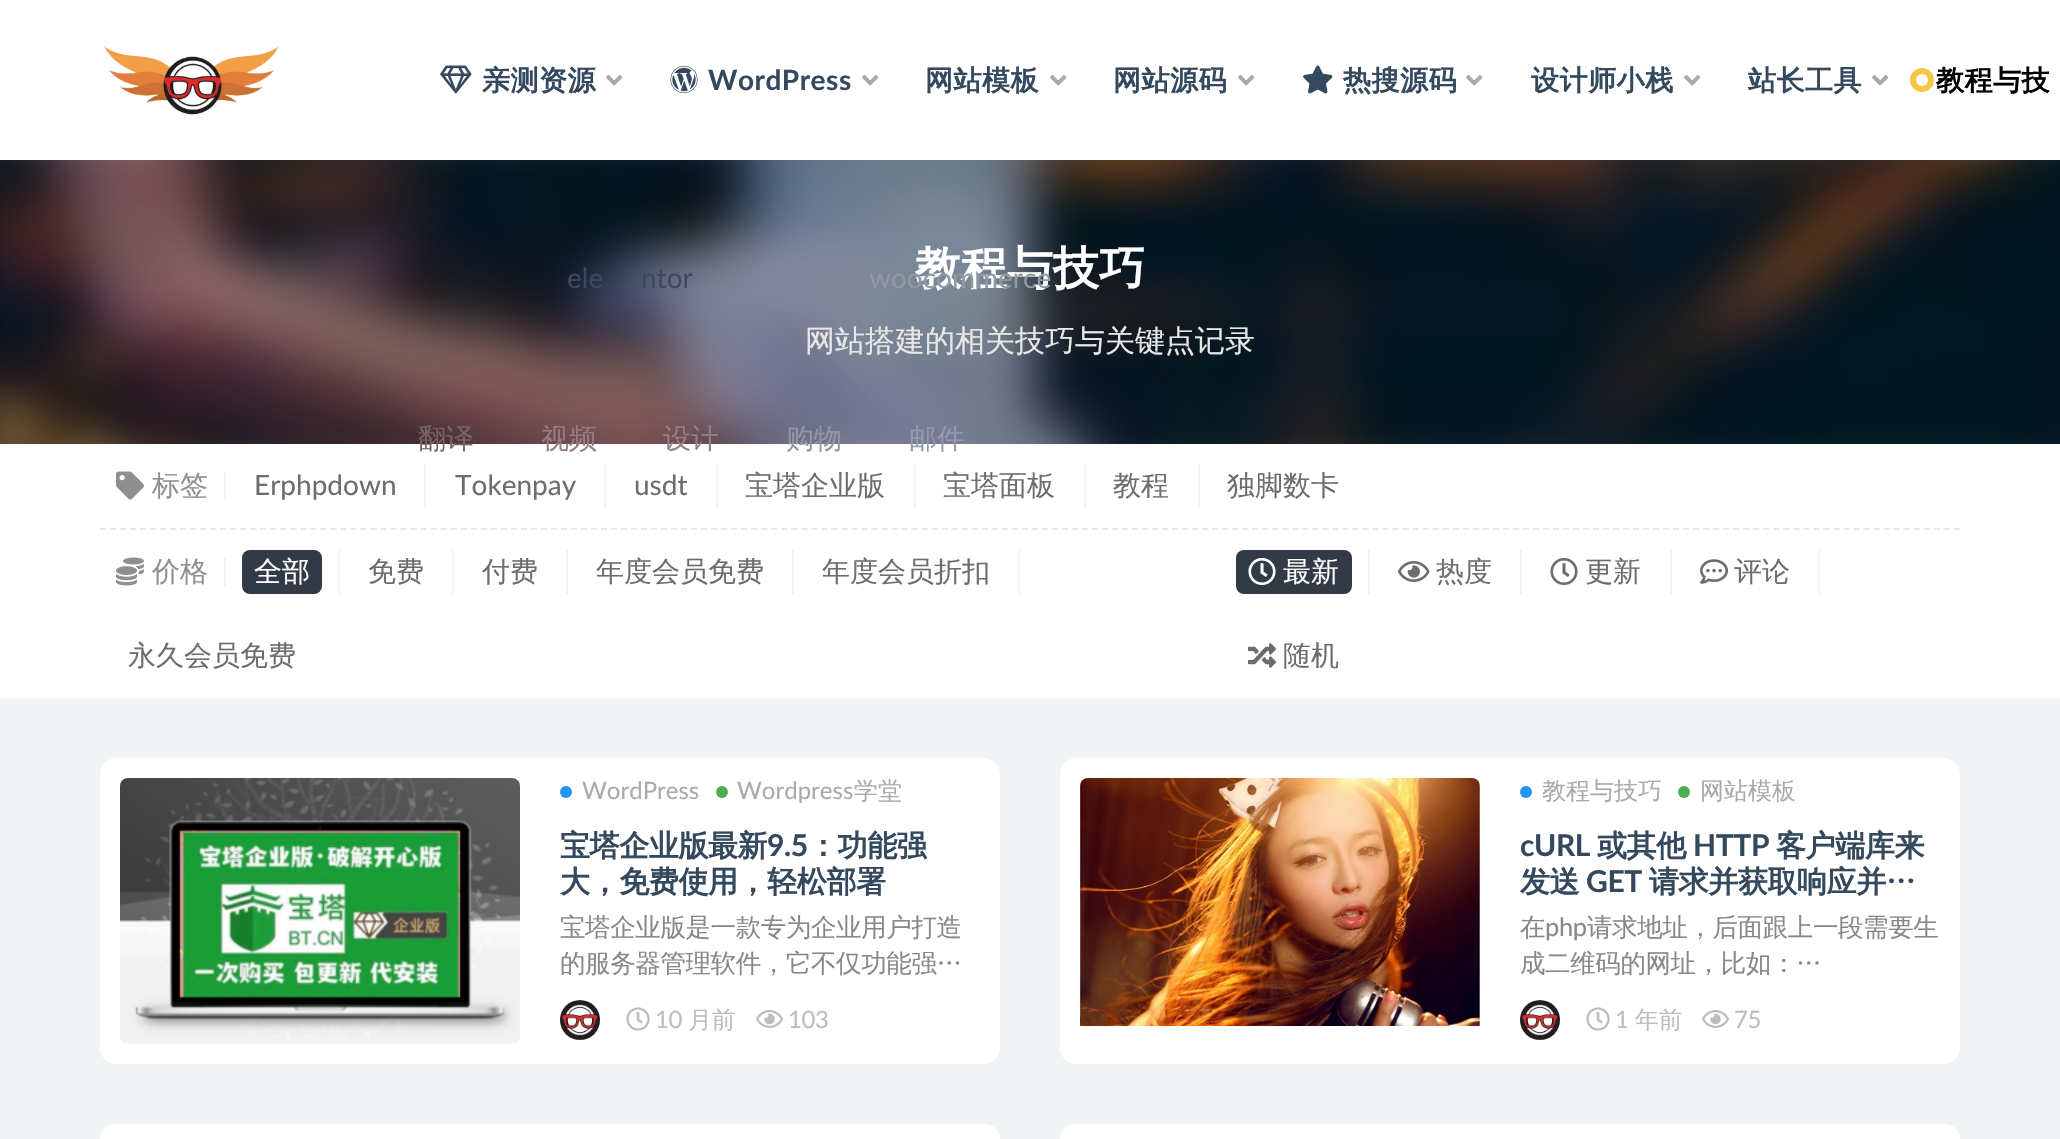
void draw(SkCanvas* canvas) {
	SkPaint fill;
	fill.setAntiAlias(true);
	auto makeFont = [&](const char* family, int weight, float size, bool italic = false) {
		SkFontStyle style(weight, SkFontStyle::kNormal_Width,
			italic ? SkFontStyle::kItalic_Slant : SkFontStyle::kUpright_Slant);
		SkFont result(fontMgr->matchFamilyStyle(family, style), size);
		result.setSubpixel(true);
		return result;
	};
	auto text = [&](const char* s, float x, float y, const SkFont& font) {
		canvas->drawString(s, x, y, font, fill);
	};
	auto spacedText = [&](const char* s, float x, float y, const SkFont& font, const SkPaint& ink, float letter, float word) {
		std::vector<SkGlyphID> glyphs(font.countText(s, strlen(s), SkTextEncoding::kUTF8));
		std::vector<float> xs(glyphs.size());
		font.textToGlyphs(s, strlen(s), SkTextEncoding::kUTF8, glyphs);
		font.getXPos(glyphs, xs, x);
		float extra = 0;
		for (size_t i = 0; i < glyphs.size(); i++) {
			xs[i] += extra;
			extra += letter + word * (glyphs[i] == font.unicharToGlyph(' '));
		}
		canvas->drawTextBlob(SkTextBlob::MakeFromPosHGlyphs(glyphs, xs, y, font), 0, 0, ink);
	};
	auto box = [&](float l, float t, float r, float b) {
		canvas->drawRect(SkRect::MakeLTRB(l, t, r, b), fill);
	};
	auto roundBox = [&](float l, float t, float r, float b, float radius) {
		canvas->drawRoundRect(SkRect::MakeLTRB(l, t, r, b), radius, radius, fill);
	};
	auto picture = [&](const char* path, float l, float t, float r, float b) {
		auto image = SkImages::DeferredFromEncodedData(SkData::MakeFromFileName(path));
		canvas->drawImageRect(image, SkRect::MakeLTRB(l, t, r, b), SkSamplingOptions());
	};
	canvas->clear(0xFFF0F4F5);
	picture("image5.png", 0, 160, 2060, 444);
	fill.setColor(0x12000000);
	fill.setMaskFilter(SkMaskFilter::MakeBlur(kNormal_SkBlurStyle, 30));
	canvas->drawRect(SkRect::MakeLTRB(0, 0, 2060, 160), fill);
	fill.setMaskFilter(nullptr);
	fill.setColor(0x4D000000);
	fill.setMaskFilter(SkMaskFilter::MakeBlur(kNormal_SkBlurStyle, 20));
	canvas->drawRect(SkRect::MakeLTRB(-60, 118, 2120, 486), fill);
	fill.setMaskFilter(nullptr);
	fill.setColor(0xFFFFFFFF);
	box(0, 0, 2060, 160);
	picture("image0.png", 104, 46, 279, 115);
	picture("image1.png", 440, 65, 472, 94);
	picture("image2.png", 606, 75, 623, 86);
	picture("image3.png", 670, 66, 698, 93);
	picture("image2.png", 862, 75, 879, 86);
	picture("image2.png", 1050, 75, 1067, 86);
	picture("image2.png", 1238, 75, 1255, 86);
	picture("image4.png", 1303, 65, 1333, 94);
	picture("image2.png", 1466, 75, 1483, 86);
	picture("image2.png", 1684, 75, 1701, 86);
	picture("image2.png", 1872, 75, 1889, 86);
	fill.setStyle(SkPaint::kStroke_Style);
	fill.setStrokeWidth(6);
	fill.setColor(0xFFF5C745);
	canvas->drawCircle(1922, 80, 9, fill);
	fill.setStyle(SkPaint::kFill_Style);
	fill.setColor(0xFFFFFFFF);
	box(0, 444, 2060, 698);
	fill.setStyle(SkPaint::kStroke_Style);
	fill.setStrokeWidth(2);
	fill.setColor(0xFFE8E8E8);
	fill.setPathEffect(SkDashPathEffect::Make({{6, 4.02f}}, 0));
	canvas->drawPath(SkPathBuilder().moveTo(100, 529).lineTo(1960, 529).detach(), fill);
	fill.setPathEffect(nullptr);
	fill.setStyle(SkPaint::kFill_Style);
	fill.setColor(0xFFF0F4F5);
	box(224, 472, 226, 500);
	picture("image6.png", 116, 471, 144, 500);
	box(424, 464, 426, 508);
	box(604, 464, 606, 508);
	box(716, 464, 718, 508);
	box(914, 464, 916, 508);
	box(1084, 464, 1086, 508);
	box(1198, 464, 1200, 508);
	box(224, 558, 226, 586);
	picture("image7.png", 116, 557, 144, 586);
	box(338, 550, 340, 594);
	fill.setColor(0xFF323A46);
	roundBox(242, 550, 322, 594, 8);
	fill.setColor(0xFFF0F4F5);
	box(452, 550, 454, 594);
	box(566, 550, 568, 594);
	box(792, 550, 794, 594);
	box(1018, 550, 1020, 594);
	box(1368, 550, 1370, 594);
	fill.setColor(0xFF323A46);
	roundBox(1236, 550, 1352, 594, 8);
	picture("image8.png", 1248, 558, 1276, 585);
	fill.setColor(0xFFF0F4F5);
	box(1520, 550, 1522, 594);
	picture("image9.png", 1398, 561, 1430, 582);
	box(1670, 550, 1672, 594);
	picture("image10.png", 1550, 558, 1578, 585);
	box(1818, 550, 1820, 594);
	picture("image11.png", 1700, 559, 1729, 584);
	picture("image12.png", 1248, 643, 1276, 668);
	fill.setColor(0xFFFFFFFF);
	roundBox(100, 758, 1000, 1064, 16);
	picture("image13.png", 120, 778, 520, 1044);
	fill.setColor(0xFF2196F3);
	canvas->drawCircle(566, 792, 6, fill);
	fill.setColor(0xFF4CAF50);
	canvas->drawCircle(722, 792, 6, fill);
	picture("image14.png", 560, 1000, 600, 1040);
	picture("image15.png", 626, 1007, 650, 1031);
	picture("image16.png", 756, 1010, 783, 1028);
	fill.setColor(0xFFFFFFFF);
	roundBox(1060, 758, 1960, 1064, 16);
	picture("image17.png", 1080, 778, 1480, 1026);
	fill.setColor(0xFF2196F3);
	canvas->drawCircle(1526, 792, 6, fill);
	fill.setColor(0xFF4CAF50);
	canvas->drawCircle(1684, 792, 6, fill);
	picture("image18.png", 1520, 1000, 1560, 1040);
	picture("image15.png", 1586, 1007, 1610, 1031);
	picture("image16.png", 1702, 1010, 1729, 1028);
	fill.setColor(0xFFFFFFFF);
	roundBox(100, 1124, 1000, 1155, 16);
	roundBox(1060, 1124, 1960, 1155, 16);
	auto font1 = makeFont("WenQuanYi Zen Hei", 700, 28);
	fill.setColor(0xFF34495E);
	spacedText("亲测资源", 482, 90, font1, fill, 0.5f, 0);
	auto font2 = makeFont("Lato", 700, 28);
	spacedText("WordPress", 708, 90, font2, fill, 0.5f, 0);
	spacedText("网站模板", 925, 90, font1, fill, 0.5f, 0);
	spacedText("网站源码", 1113, 90, font1, fill, 0.5f, 0);
	spacedText("热搜源码", 1343, 90, font1, fill, 0.5f, 0);
	spacedText("设计师小栈", 1531, 90, font1, fill, 0.5f, 0);
	spacedText("站长工具", 1748, 90, font1, fill, 0.5f, 0);
	fill.setColor(0xFF000000);
	spacedText("教程与技", 1936, 90, font1, fill, 0.5f, 0);
	auto font3 = makeFont("WenQuanYi Zen Hei", 700, 46);
	fill.setColor(0xFFFFFFFF);
	text("教程与技巧", 915, 284, font3);
	auto font4 = makeFont("WenQuanYi Zen Hei", 500, 30);
	fill.setColor(0xFFE8E8E8);
	text("网站搭建的相关技巧与关键点记录", 805, 351, font4);
	auto font5 = makeFont("WenQuanYi Zen Hei", 500, 28);
	fill.setColor(0xFF8F8F8F);
	text("标签", 152, 495, font5);
	auto font6 = makeFont("Lato", 400, 28);
	fill.setColor(0xFF6D6D6D);
	text("Erphpdown", 254, 495, font6);
	text("Tokenpay", 455, 495, font6);
	text("usdt", 634, 495, font6);
	text("宝塔企业版", 745, 495, font5);
	text("宝塔面板", 943, 495, font5);
	text("教程", 1113, 495, font5);
	text("独脚数卡", 1227, 495, font5);
	fill.setColor(0xFF8F8F8F);
	text("价格", 152, 581, font5);
	fill.setColor(0xFFFFFFFF);
	text("全部", 254, 581, font5);
	fill.setColor(0xFF6D6D6D);
	text("免费", 368, 581, font5);
	text("付费", 482, 581, font5);
	text("年度会员免费", 596, 581, font5);
	text("年度会员折扣", 822, 581, font5);
	text("永久会员免费", 128, 665, font5);
	fill.setColor(0xFFFFFFFF);
	text("最新", 1283, 581, font5);
	fill.setColor(0xFF6D6D6D);
	text("热度", 1436, 581, font5);
	text("更新", 1585, 581, font5);
	text("评论", 1734, 581, font5);
	text("随机", 1283, 665, font5);
	auto font7 = makeFont("Lato", 400, 24);
	fill.setColor(0xFFAAAAAA);
	text("WordPress", 582, 799, font7);
	text("Wordpress", 737, 799, font7);
	auto font8 = makeFont("WenQuanYi Zen Hei", 500, 24);
	text("学堂", 854, 799, font8);
	auto font9 = makeFont("WenQuanYi Zen Hei", 700, 30);
	fill.setColor(0xFF34495E);
	spacedText("宝塔企业版最新", 560, 856, font9, fill, -0.4f, 0);
	auto font10 = makeFont("Lato", 700, 30);
	spacedText("9.5", 767, 856, font10, fill, -0.4f, 0);
	spacedText("：功能强", 808, 856, font9, fill, -0.4f, 0);
	spacedText("大，免费使用，轻松部署", 560, 892, font9, fill, -0.4f, 0);
	auto font11 = makeFont("WenQuanYi Zen Hei", 500, 25.5f);
	fill.setColor(0xFF888888);
	spacedText("宝塔企业版是一款专为企业用户打造", 560, 936, font11, fill, -0.4f, 0);
	spacedText("的服务器管理软件，它不仅功能强…", 560, 972, font11, fill, -0.4f, 0);
	fill.setColor(0xFFBDBDBD);
	spacedText("10", 655, 1028, font7, fill, -0.4f, 0);
	spacedText("月前", 688, 1028, font8, fill, -0.4f, 0);
	spacedText("103", 788, 1028, font7, fill, -0.4f, 0);
	fill.setColor(0xFFAAAAAA);
	text("教程与技巧", 1542, 799, font8);
	text("网站模板", 1700, 799, font8);
	fill.setColor(0xFF34495E);
	spacedText("cURL", 1520, 856, font10, fill, -0.4f, 0);
	spacedText("或其他", 1597, 856, font9, fill, -0.4f, 0);
	spacedText("HTTP", 1693, 856, font10, fill, -0.4f, 0);
	spacedText("客户端库来", 1776, 856, font9, fill, -0.4f, 0);
	spacedText("发送", 1520, 892, font9, fill, -0.4f, 0);
	spacedText("GET", 1586, 892, font10, fill, -0.4f, 0);
	spacedText("请求并获取响应并…", 1649, 892, font9, fill, -0.4f, 0);
	fill.setColor(0xFF888888);
	spacedText("在", 1520, 936, font11, fill, -0.4f, 0);
	auto font12 = makeFont("Lato", 400, 25.5f);
	spacedText("php", 1545, 936, font12, fill, -0.4f, 0);
	spacedText("请求地址，后面跟上一段需要生", 1587, 936, font11, fill, -0.4f, 0);
	spacedText("成二维码的网址，比如：…", 1520, 972, font11, fill, -0.4f, 0);
	fill.setColor(0xFFBDBDBD);
	spacedText("1", 1615, 1028, font7, fill, -0.4f, 0);
	spacedText("年前", 1635, 1028, font8, fill, -0.4f, 0);
	spacedText("75", 1734, 1028, font7, fill, -0.4f, 0);
	fill.setColor(0xFF3E485D);
	text("ele", 567, 288, font6);
	text("ntor", 641, 288, font6);
	fill.setColor(0xFF8F99A3);
	text("woocommerce", 869, 288, font6);
	fill.setColor(0xFF786367);
	text("翻译", 418, 448, font5);
	fill.setColor(0xFF957B7E);
	text("视频", 541, 448, font5);
	fill.setColor(0xFF957F84);
	text("设计", 663, 448, font5);
	fill.setColor(0xFF8F99A3);
	text("购物", 786, 448, font5);
	fill.setColor(0xFF9499AB);
	text("邮件", 909, 448, font5);
}
